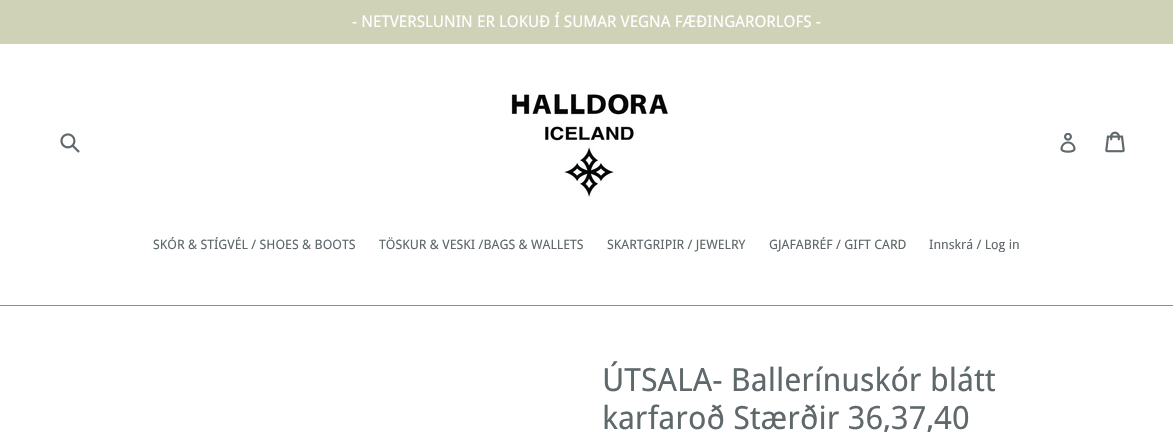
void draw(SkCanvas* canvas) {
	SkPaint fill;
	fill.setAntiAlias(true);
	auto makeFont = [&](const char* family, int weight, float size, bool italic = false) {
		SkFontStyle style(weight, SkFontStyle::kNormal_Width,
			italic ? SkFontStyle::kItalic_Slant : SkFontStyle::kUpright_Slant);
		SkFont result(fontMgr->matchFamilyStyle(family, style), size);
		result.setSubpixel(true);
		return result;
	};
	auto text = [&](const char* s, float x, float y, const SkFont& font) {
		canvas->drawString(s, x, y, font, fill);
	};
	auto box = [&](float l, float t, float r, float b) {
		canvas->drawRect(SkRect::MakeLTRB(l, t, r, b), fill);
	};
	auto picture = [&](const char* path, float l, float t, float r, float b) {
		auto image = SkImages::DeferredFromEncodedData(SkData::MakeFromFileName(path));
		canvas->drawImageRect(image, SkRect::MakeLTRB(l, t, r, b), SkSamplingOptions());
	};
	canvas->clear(0xFFFFFFFF);
	fill.setColor(0xFFCFD2B7);
	box(0, 0, 1173, 44);
	picture("image0.png", 60, 133, 80, 153);
	picture("image1.png", 511, 94, 668, 197);
	picture("image2.png", 1060, 133, 1076, 153);
	picture("image3.png", 1105, 131, 1125, 153);
	fill.setColor(0xFF8A8B8D);
	box(0, 305, 1173, 306);
	auto font1 = makeFont("Droid Sans", 400, 16);
	fill.setColor(0xFFFFFFFF);
	text("- NETVERSLUNIN ER LOKUÐ Í SUMAR VEGNA FÆÐINGARORLOFS -", 352, 27, font1);
	auto font2 = makeFont("Droid Sans", 400, 13);
	fill.setColor(0xFF5F686B);
	text("SKÓR & STÍGVÉL / SHOES & BOOTS", 153, 249, font2);
	text("TÖSKUR & VESKI /BAGS & WALLETS", 379, 249, font2);
	text("SKARTGRIPIR / JEWELRY", 607, 249, font2);
	text("GJAFABRÉF / GIFT CARD", 769, 249, font2);
	text("Innskrá / Log in", 929, 249, font2);
	auto font3 = makeFont("Droid Sans", 400, 32);
	text("ÚTSALA- Ballerínuskór blátt", 602, 391, font3);
	text("karfaroð Stærðir 36,37,40", 602, 429, font3);
}
